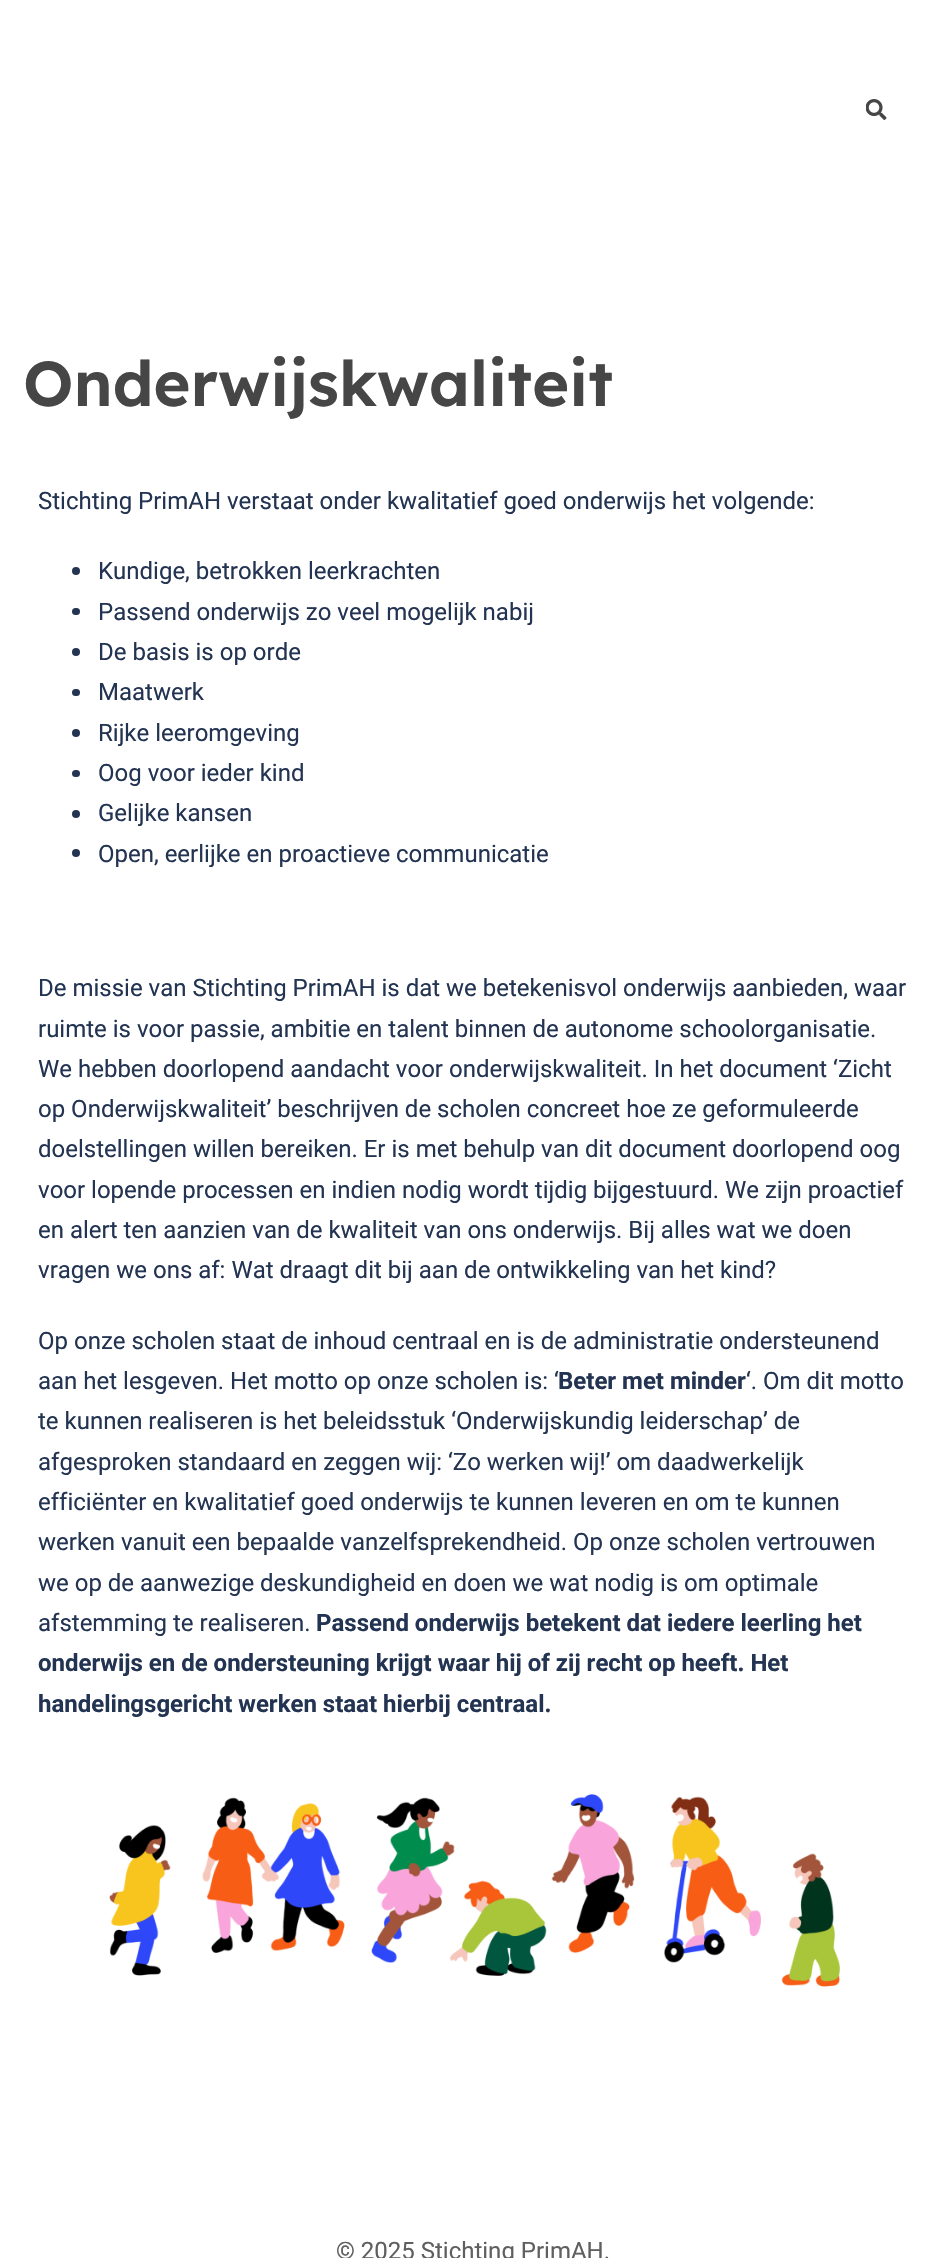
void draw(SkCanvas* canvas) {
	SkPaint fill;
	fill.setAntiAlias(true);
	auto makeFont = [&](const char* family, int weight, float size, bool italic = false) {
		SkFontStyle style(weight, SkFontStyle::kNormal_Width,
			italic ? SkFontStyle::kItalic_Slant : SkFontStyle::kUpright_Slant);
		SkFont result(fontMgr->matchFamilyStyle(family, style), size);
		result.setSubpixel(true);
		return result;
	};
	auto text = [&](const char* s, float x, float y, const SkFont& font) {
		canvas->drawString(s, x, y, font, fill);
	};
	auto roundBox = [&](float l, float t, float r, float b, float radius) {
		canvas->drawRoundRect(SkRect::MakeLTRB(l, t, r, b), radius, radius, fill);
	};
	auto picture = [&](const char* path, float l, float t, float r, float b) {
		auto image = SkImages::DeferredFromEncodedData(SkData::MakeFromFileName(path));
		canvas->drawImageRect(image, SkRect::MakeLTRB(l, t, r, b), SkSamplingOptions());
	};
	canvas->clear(0xFFFFFFFF);
	picture("image0.png", 866, 99, 887, 120);
	fill.setColor(0xFF233452);
	canvas->drawCircle(76, 571, 4, fill);
	roundBox(72, 608, 80, 615, 3.5f);
	canvas->drawCircle(76, 652, 4, fill);
	roundBox(72, 689, 80, 696, 3.5f);
	canvas->drawCircle(76, 733, 4, fill);
	roundBox(72, 770, 80, 777, 3.5f);
	canvas->drawCircle(76, 814, 4, fill);
	canvas->drawCircle(76, 853, 4, fill);
	picture("image1.png", 109, 1794, 840, 1987);
	auto font1 = makeFont("Lexend", 600, 63);
	fill.setColor(0xFF464646);
	text("Onderwijskwaliteit", 23, 406, font1);
	auto font2 = makeFont("Roboto", 400, 24);
	fill.setColor(0xFF233452);
	text("Stichting PrimAH verstaat onder kwalitatief goed onderwijs het volgende:", 38, 509, font2);
	text("Kundige, betrokken leerkrachten", 98, 579, font2);
	text("Passend onderwijs zo veel mogelijk nabij", 98, 620, font2);
	text("De basis is op orde", 98, 660, font2);
	text("Maatwerk", 98, 700, font2);
	text("Rijke leeromgeving", 98, 741, font2);
	text("Oog voor ieder kind", 98, 781, font2);
	text("Gelijke kansen", 98, 821, font2);
	text("Open, eerlijke en proactieve communicatie", 98, 862, font2);
	text("De missie van Stichting PrimAH is dat we betekenisvol onderwijs aanbieden, waar", 38, 996, font2);
	text("ruimte is voor passie, ambitie en talent binnen de autonome schoolorganisatie.", 38, 1037, font2);
	text("We hebben doorlopend aandacht voor onderwijskwaliteit. In het document ‘Zicht", 38, 1077, font2);
	text("op Onderwijskwaliteit’ beschrijven de scholen concreet hoe ze geformuleerde", 38, 1117, font2);
	text("doelstellingen willen bereiken. Er is met behulp van dit document doorlopend oog", 38, 1157, font2);
	text("voor lopende processen en indien nodig wordt tijdig bijgestuurd. We zijn proactief", 38, 1198, font2);
	text("en alert ten aanzien van de kwaliteit van ons onderwijs. Bij alles wat we doen", 38, 1238, font2);
	text("vragen we ons af: Wat draagt dit bij aan de ontwikkeling van het kind?", 38, 1278, font2);
	text("Op onze scholen staat de inhoud centraal en is de administratie ondersteunend", 38, 1349, font2);
	text("aan het lesgeven. Het motto op onze scholen is: ‘", 38, 1389, font2);
	auto font3 = makeFont("Roboto", 700, 24);
	text("Beter met minder", 558, 1389, font3);
	text("‘. Om dit motto", 746, 1389, font2);
	text("te kunnen realiseren is het beleidsstuk ‘Onderwijskundig leiderschap’ de", 38, 1429, font2);
	text("afgesproken standaard en zeggen wij: ‘Zo werken wij!’ om daadwerkelijk", 38, 1470, font2);
	text("efficiënter en kwalitatief goed onderwijs te kunnen leveren en om te kunnen", 38, 1510, font2);
	text("werken vanuit een bepaalde vanzelfsprekendheid. Op onze scholen vertrouwen", 38, 1550, font2);
	text("we op de aanwezige deskundigheid en doen we wat nodig is om optimale", 38, 1591, font2);
	text("afstemming te realiseren.", 38, 1631, font2);
	text("Passend onderwijs betekent dat iedere leerling het", 316, 1631, font3);
	text("onderwijs en de ondersteuning krijgt waar hij of zij recht op heeft. Het", 38, 1671, font3);
	text("handelingsgericht werken staat hierbij centraal.", 38, 1712, font3);
	fill.setColor(0xFF5F5F5F);
	text("© 2025 Stichting PrimAH.", 336, 2259, font2);
}
